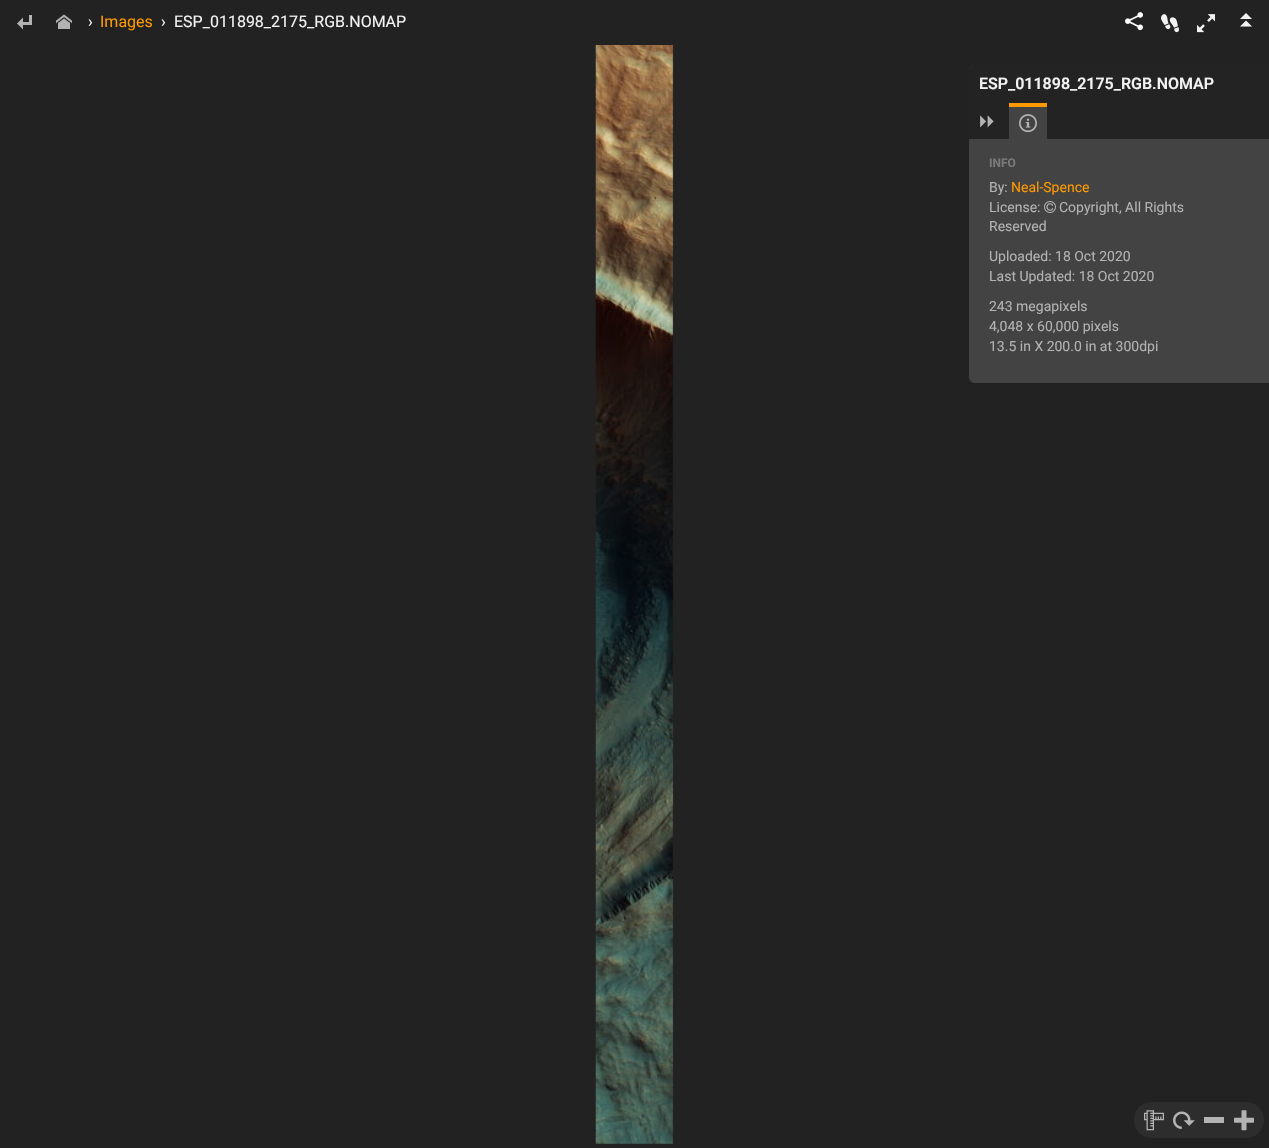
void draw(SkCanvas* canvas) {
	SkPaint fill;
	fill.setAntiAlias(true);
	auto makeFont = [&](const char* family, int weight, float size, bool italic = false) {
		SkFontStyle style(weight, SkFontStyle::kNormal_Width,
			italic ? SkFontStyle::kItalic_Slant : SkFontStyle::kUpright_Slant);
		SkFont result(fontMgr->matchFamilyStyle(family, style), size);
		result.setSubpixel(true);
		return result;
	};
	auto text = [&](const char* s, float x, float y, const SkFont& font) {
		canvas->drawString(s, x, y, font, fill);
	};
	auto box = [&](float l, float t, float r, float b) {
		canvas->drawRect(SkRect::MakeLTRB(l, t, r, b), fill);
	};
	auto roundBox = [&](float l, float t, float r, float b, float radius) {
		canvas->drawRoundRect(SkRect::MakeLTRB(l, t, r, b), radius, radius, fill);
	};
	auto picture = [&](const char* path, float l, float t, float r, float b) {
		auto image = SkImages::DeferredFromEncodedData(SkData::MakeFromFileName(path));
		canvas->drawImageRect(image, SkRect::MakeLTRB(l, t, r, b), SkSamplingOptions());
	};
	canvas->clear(0xFF222222);
	picture("image0.png", 17, 15, 32, 30);
	picture("image1.png", 56, 14, 72, 29);
	picture("image2.png", 1125, 12, 1143, 31);
	picture("image3.png", 1161, 14, 1179, 33);
	picture("image4.png", 1197, 14, 1215, 33);
	picture("image5.png", 1240, 13, 1252, 27);
	picture("image6.png", 595, 45, 674, 1144);
	fill.setColor(0xFF434343);
	canvas->drawPath(SkPathBuilder().moveTo(975, 65).lineTo(1269, 65).lineTo(1269, 383).lineTo(975, 383).cubicTo(971.5f, 383, 969, 380.5f, 969, 377).lineTo(969, 71).cubicTo(969, 67.5f, 971.5f, 65, 975, 65).close().detach(), fill);
	fill.setColor(0xFF232323);
	canvas->drawPath(SkPathBuilder().moveTo(975, 65).lineTo(1269, 65).lineTo(1269, 103).lineTo(969, 103).lineTo(969, 71).cubicTo(969, 67.5f, 971.5f, 65, 975, 65).close().detach(), fill);
	box(969, 103, 1269, 139);
	picture("image7.png", 980, 115, 994, 128);
	fill.setColor(0xFF434343);
	box(1009, 107, 1047, 139);
	fill.setColor(0xFFFF9900);
	box(1009, 103, 1047, 107);
	picture("image8.png", 1019, 114, 1037, 133);
	picture("image9.png", 1044, 201, 1056, 213);
	fill.setColor(0xFF2D2D2D);
	roundBox(1134, 1102, 1264, 1138, 18);
	picture("image10.png", 1144, 1110, 1164, 1131);
	picture("image11.png", 1173, 1111, 1195, 1129);
	fill.setColor(0xFFB3B3B3);
	box(1204, 1117, 1224, 1123);
	picture("image12.png", 1234, 1110, 1254, 1131);
	auto font1 = makeFont("Roboto", 400, 16);
	fill.setColor(0xFFF2F2F2);
	text("›", 88, 27, font1);
	fill.setColor(0xFFFF9900);
	text("Images", 100, 27, font1);
	fill.setColor(0xFFF2F2F2);
	text("›", 161, 27, font1);
	text("ESP_011898_2175_RGB.NOMAP", 174, 27, font1);
	auto font2 = makeFont("Roboto", 600, 16);
	text("ESP_011898_2175_RGB.NOMAP", 979, 89, font2);
	auto font3 = makeFont("Roboto", 700, 12);
	fill.setColor(0xFF7A7A7A);
	text("INFO", 989, 167, font3);
	auto font4 = makeFont("Roboto", 400, 14);
	fill.setColor(0xFFB3B3B3);
	text("By:", 989, 192, font4);
	fill.setColor(0xFFFF9900);
	text("Neal-Spence", 1011, 192, font4);
	fill.setColor(0xFFB3B3B3);
	text("License:", 989, 212, font4);
	text("Copyright, All Rights", 1059, 212, font4);
	text("Reserved", 989, 231, font4);
	text("Uploaded: 18 Oct 2020", 989, 261, font4);
	text("Last Updated: 18 Oct 2020", 989, 281, font4);
	text("243 megapixels", 989, 311, font4);
	text("4,048 x 60,000 pixels", 989, 331, font4);
	text("13.5 in X 200.0 in at 300dpi", 989, 351, font4);
}
